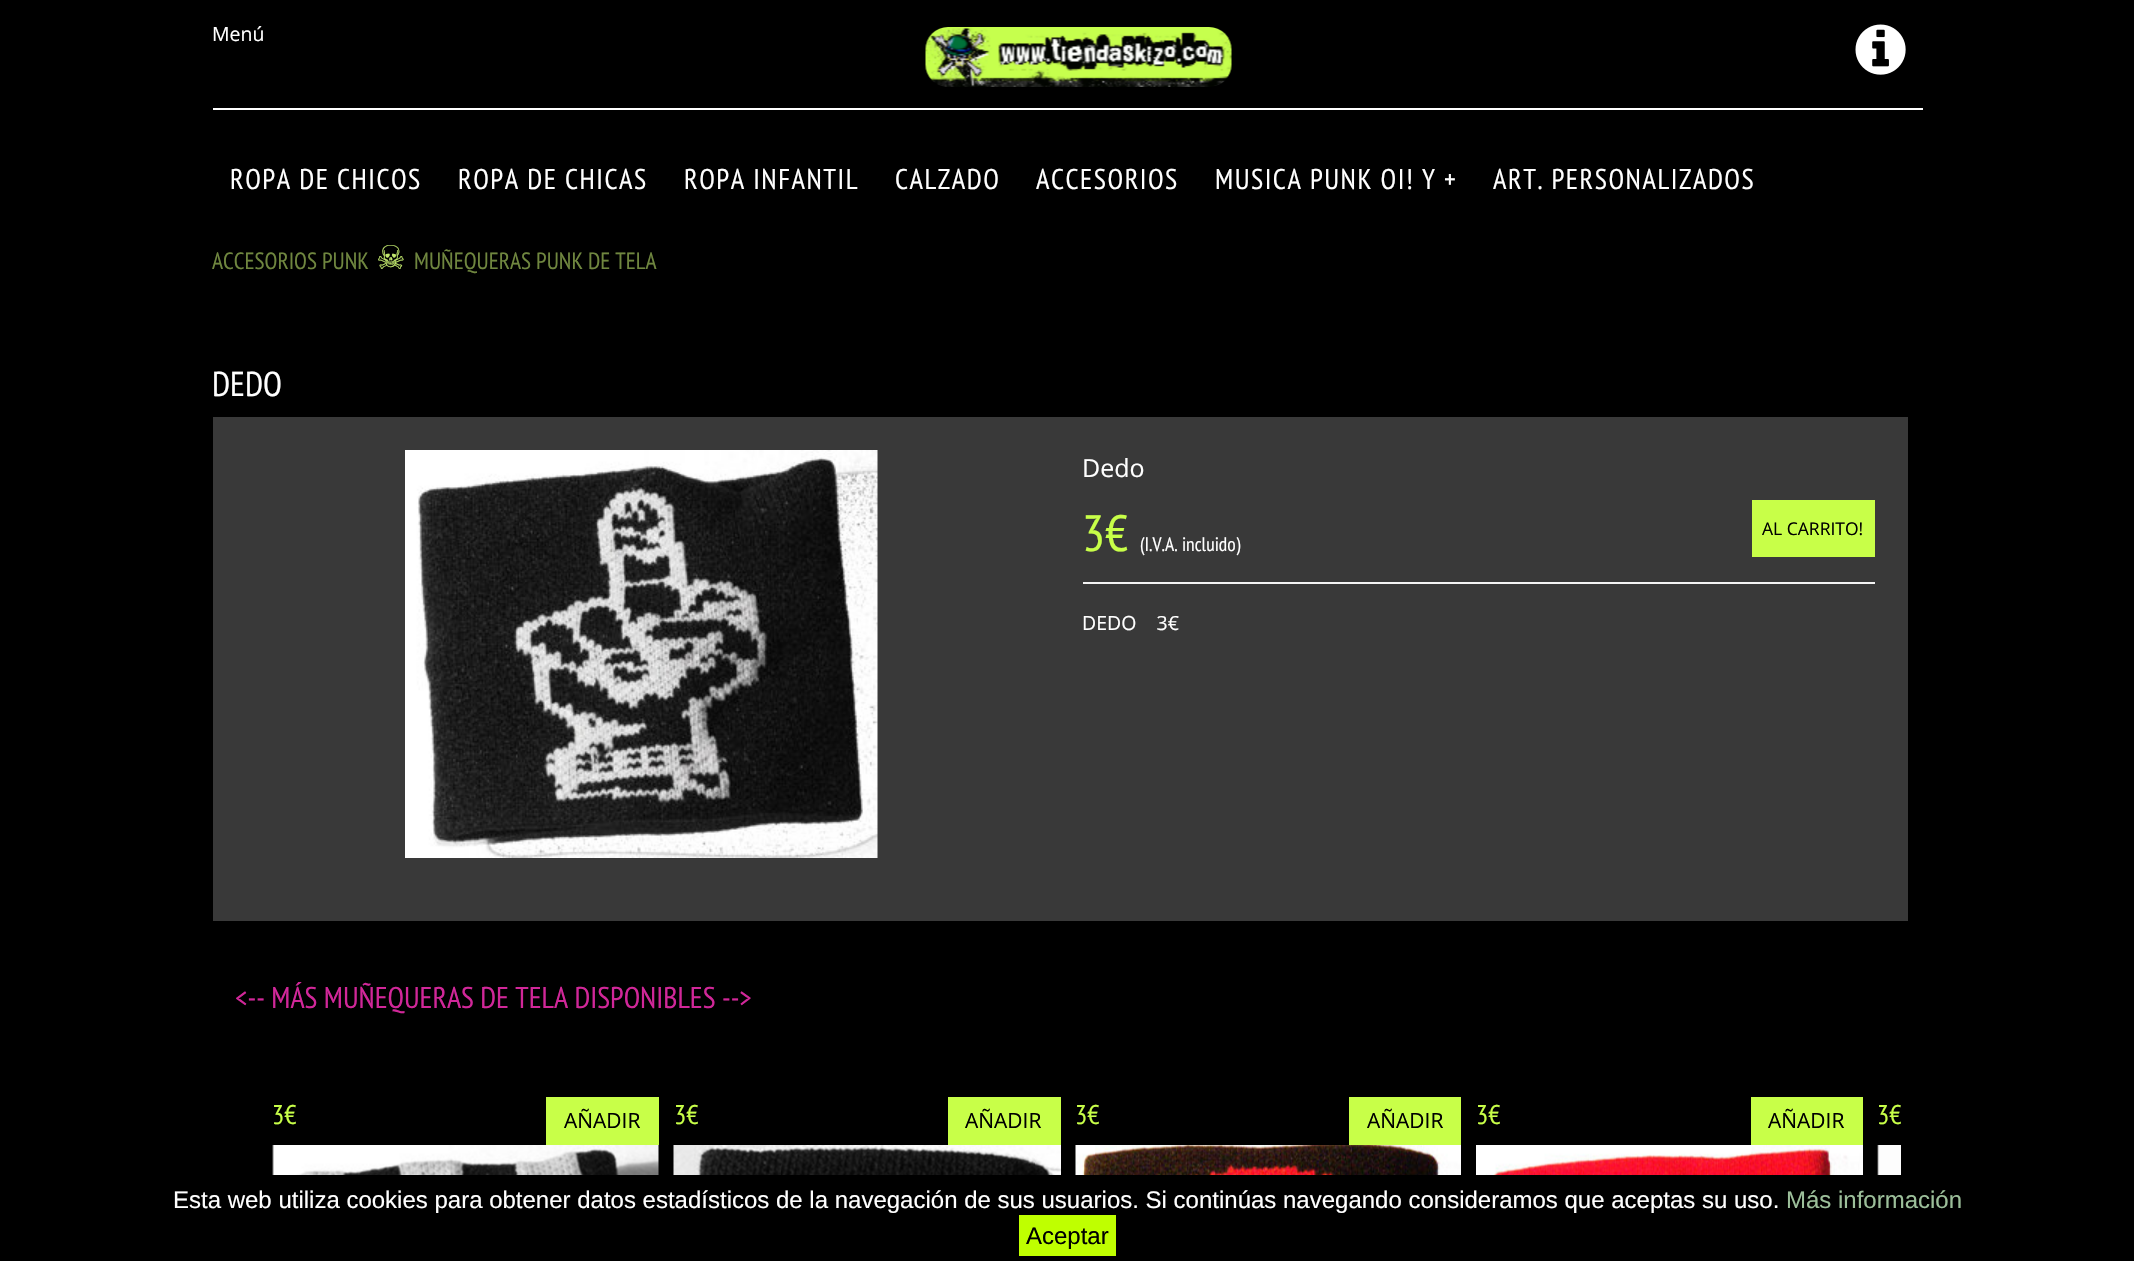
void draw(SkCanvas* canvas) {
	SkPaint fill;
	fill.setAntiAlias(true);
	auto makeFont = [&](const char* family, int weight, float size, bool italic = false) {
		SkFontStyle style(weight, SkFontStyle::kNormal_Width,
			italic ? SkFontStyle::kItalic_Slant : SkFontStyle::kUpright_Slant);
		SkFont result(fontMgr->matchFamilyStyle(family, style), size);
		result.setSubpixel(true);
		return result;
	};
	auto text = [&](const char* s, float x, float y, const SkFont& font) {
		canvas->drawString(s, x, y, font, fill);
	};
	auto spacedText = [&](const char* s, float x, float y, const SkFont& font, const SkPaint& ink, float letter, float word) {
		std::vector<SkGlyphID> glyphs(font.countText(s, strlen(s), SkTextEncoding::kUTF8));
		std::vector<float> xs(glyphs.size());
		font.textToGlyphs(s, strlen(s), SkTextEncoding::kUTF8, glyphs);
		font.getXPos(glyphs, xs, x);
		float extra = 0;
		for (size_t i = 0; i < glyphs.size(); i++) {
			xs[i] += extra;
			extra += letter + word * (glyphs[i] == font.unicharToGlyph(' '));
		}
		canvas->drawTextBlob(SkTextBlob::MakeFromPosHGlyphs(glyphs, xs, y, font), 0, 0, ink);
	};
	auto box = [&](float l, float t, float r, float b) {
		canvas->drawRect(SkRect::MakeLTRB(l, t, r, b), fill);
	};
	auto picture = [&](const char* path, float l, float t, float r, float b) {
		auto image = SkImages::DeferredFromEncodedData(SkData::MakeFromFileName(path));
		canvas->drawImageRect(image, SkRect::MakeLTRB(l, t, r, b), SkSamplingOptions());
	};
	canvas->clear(0xFF000000);
	fill.setColor(0xFFFFFFFF);
	box(213, 108, 1923, 110);
	picture("image0.png", 925, 27, 1232, 87);
	picture("image1.png", 1855, 24, 1906, 75);
	fill.setColor(0xFF393939);
	box(213, 417, 1908, 921);
	picture("image2.png", 405, 450, 878, 858);
	fill.setColor(0xFFF4F4F4);
	box(1083, 582, 1875, 584);
	fill.setColor(0xFFC8FF48);
	box(1752, 500, 1875, 557);
	box(546, 1097, 659, 1145);
	picture("image3.png", 272, 1145, 659, 1175);
	box(948, 1097, 1061, 1145);
	picture("image4.png", 673, 1145, 1061, 1175);
	box(1349, 1097, 1461, 1145);
	picture("image5.png", 1075, 1145, 1461, 1175);
	box(1751, 1097, 1863, 1145);
	picture("image6.png", 1476, 1145, 1863, 1175);
	picture("image7.png", 1877, 1145, 1901, 1175);
	fill.setColor(0xFFBFFF00);
	box(1019, 1215, 1116, 1256);
	auto font1 = makeFont("Open Sans", 400, 19.5f);
	fill.setColor(0xFFFFFFFF);
	text("Menú", 212, 41, font1);
	auto font2 = makeFont("PT Sans Narrow", 400, 28.5f);
	spacedText("ROPA DE CHICOS", 230, 189, font2, fill, 1.5f, 0);
	spacedText("ROPA DE CHICAS", 458, 189, font2, fill, 1.5f, 0);
	spacedText("ROPA INFANTIL", 684, 189, font2, fill, 1.5f, 0);
	spacedText("CALZADO", 895, 189, font2, fill, 1.5f, 0);
	spacedText("ACCESORIOS", 1036, 189, font2, fill, 1.5f, 0);
	spacedText("MUSICA PUNK OI! Y +", 1215, 189, font2, fill, 1.5f, 0);
	spacedText("ART. PERSONALIZADOS", 1493, 189, font2, fill, 1.5f, 0);
	auto font3 = makeFont("PT Sans Narrow", 400, 23.4f);
	fill.setColor(0xFF6F863F);
	text("ACCESORIOS PUNK", 212, 269, font3);
	auto font4 = makeFont("DejaVu Sans", 400, 33);
	fill.setColor(0xFFC0E76C);
	text("☠", 376, 269, font4);
	fill.setColor(0xFF000000);
	box(389, 244, 394, 245);
	fill.setColor(0xFF6F863F);
	text("MUÑEQUERAS PUNK DE TELA", 414, 269, font3);
	auto font5 = makeFont("PT Sans Narrow", 400, 34.5f);
	fill.setColor(0xFFFFFFFF);
	text("DEDO", 212, 396, font5);
	auto font6 = makeFont("Open Sans", 400, 25);
	text("Dedo", 1082, 477, font6);
	auto font7 = makeFont("PT Sans Narrow", 400, 51);
	fill.setColor(0xFFC8FF48);
	text("3€", 1082, 551, font7);
	auto font8 = makeFont("PT Sans Narrow", 400, 19.5f);
	fill.setColor(0xFFFFFFFF);
	text("(I.V.A. incluido)", 1140, 551, font8);
	auto font9 = makeFont("Open Sans", 400, 17.5f);
	fill.setColor(0xFF000000);
	text("AL CARRITO!", 1762, 535, font9);
	fill.setColor(0xFFFFFFFF);
	text("DEDO    3€", 1082, 630, font1);
	auto font10 = makeFont("PT Sans Narrow", 400, 30);
	fill.setColor(0xFFD12799);
	text("<-- MÁS MUÑEQUERAS DE TELA DISPONIBLES -->", 235, 1008, font10);
	auto font11 = makeFont("PT Sans Narrow", 400, 27);
	fill.setColor(0xFFC8FF48);
	text("3€", 272, 1124, font11);
	auto font12 = makeFont("Open Sans", 400, 21);
	fill.setColor(0xFF000000);
	text("AÑADIR", 564, 1128, font12);
	fill.setColor(0xFFC8FF48);
	text("3€", 674, 1124, font11);
	fill.setColor(0xFF000000);
	text("AÑADIR", 965, 1128, font12);
	fill.setColor(0xFFC8FF48);
	text("3€", 1075, 1124, font11);
	fill.setColor(0xFF000000);
	text("AÑADIR", 1367, 1128, font12);
	fill.setColor(0xFFC8FF48);
	text("3€", 1476, 1124, font11);
	fill.setColor(0xFF000000);
	text("AÑADIR", 1768, 1128, font12);
	fill.setColor(0xFFC8FF48);
	text("3€", 1877, 1124, font11);
	auto font13 = makeFont("Liberation Sans", 400, 24);
	fill.setColor(0xFFFFFFFF);
	text("Esta web utiliza cookies para obtener datos estadísticos de la navegación de sus usuarios. Si continúas navegando consideramos que aceptas su uso.", 173, 1208, font13);
	fill.setColor(0xFF9CBF9A);
	text("Más información", 1786, 1208, font13);
	fill.setColor(0xFF000000);
	text("Aceptar", 1026, 1244, font13);
}
